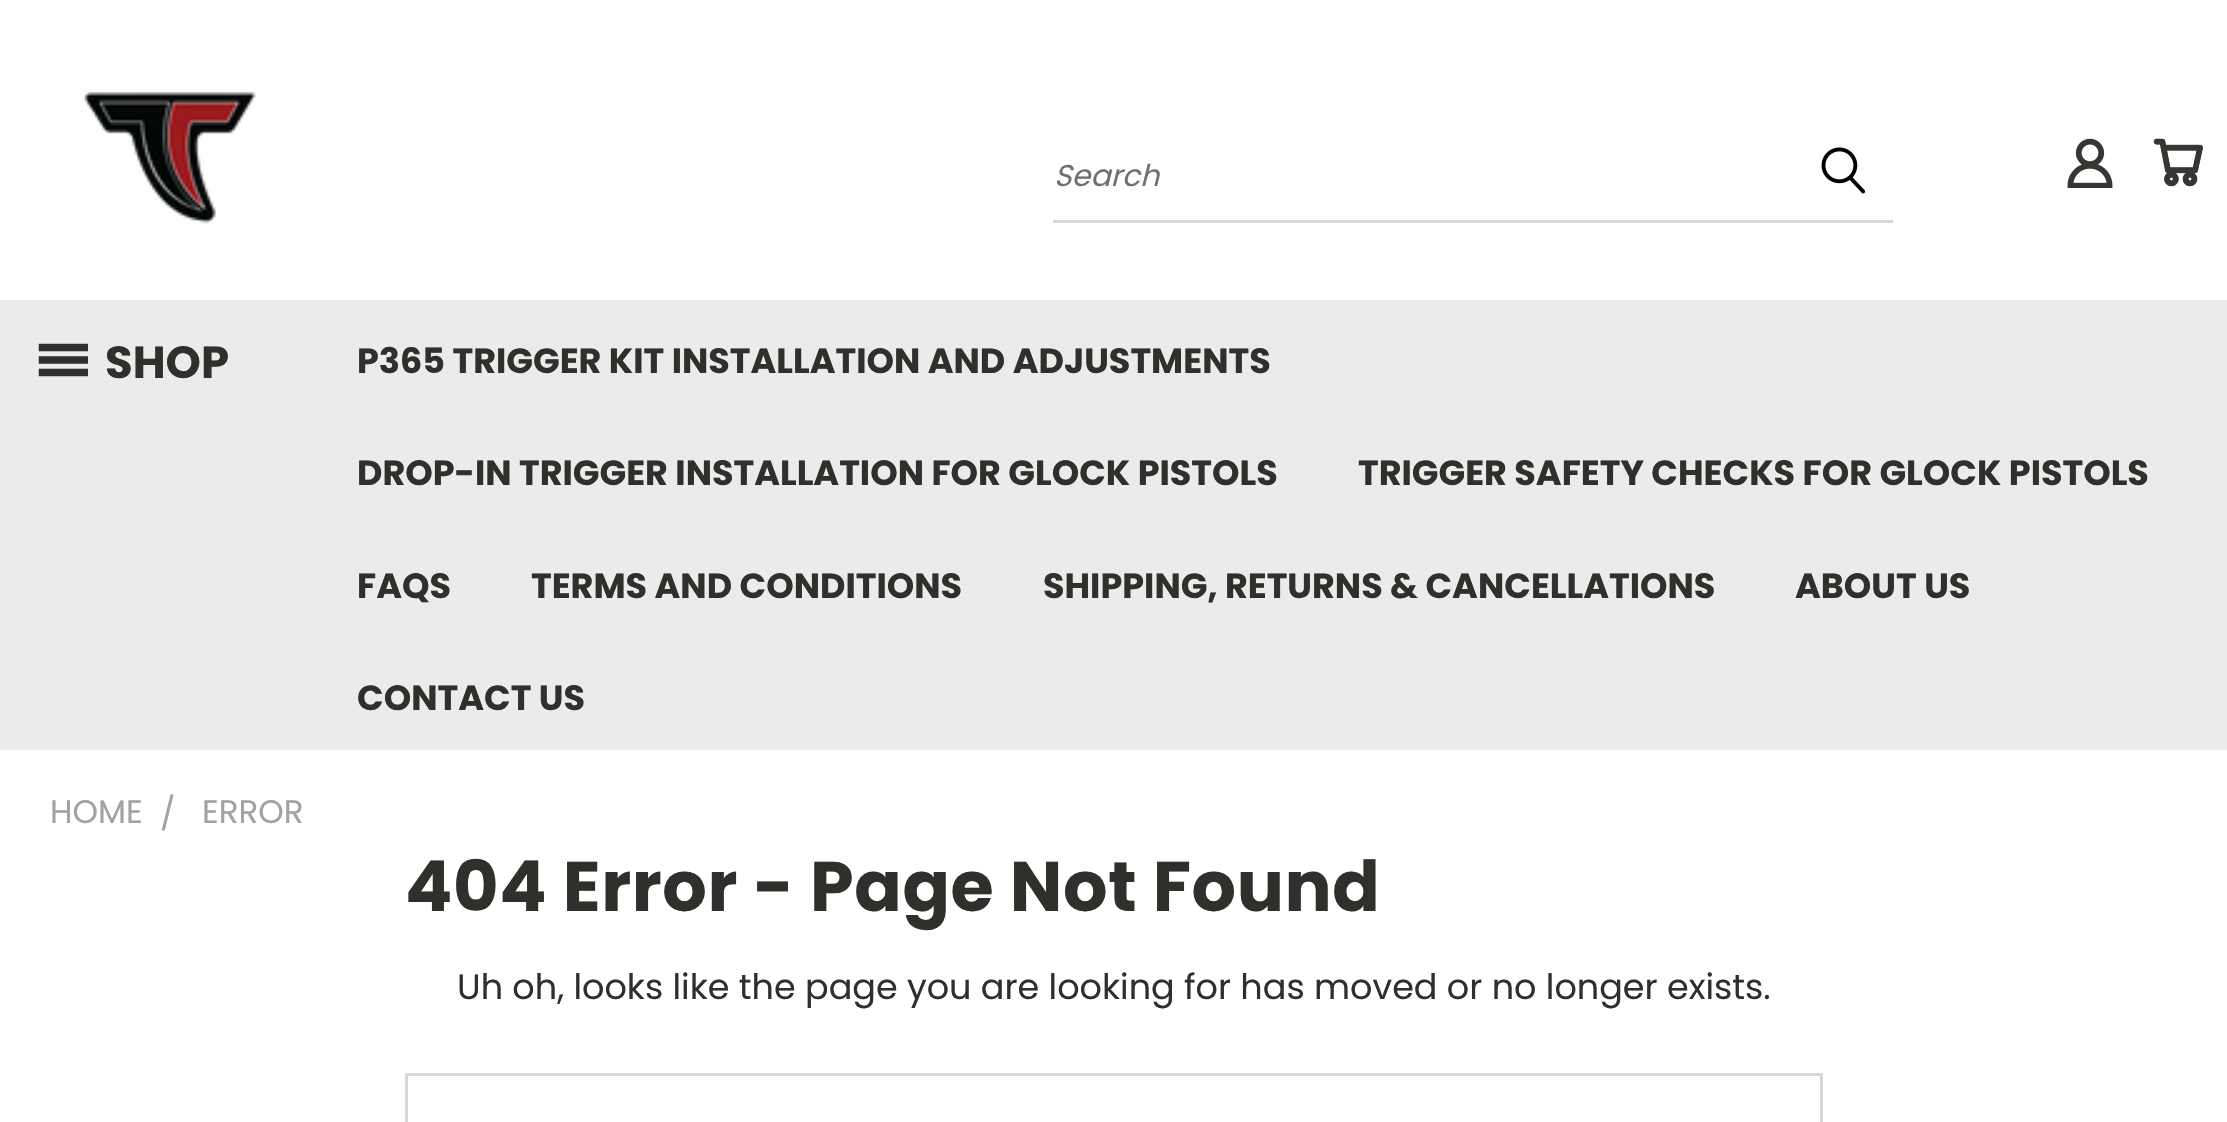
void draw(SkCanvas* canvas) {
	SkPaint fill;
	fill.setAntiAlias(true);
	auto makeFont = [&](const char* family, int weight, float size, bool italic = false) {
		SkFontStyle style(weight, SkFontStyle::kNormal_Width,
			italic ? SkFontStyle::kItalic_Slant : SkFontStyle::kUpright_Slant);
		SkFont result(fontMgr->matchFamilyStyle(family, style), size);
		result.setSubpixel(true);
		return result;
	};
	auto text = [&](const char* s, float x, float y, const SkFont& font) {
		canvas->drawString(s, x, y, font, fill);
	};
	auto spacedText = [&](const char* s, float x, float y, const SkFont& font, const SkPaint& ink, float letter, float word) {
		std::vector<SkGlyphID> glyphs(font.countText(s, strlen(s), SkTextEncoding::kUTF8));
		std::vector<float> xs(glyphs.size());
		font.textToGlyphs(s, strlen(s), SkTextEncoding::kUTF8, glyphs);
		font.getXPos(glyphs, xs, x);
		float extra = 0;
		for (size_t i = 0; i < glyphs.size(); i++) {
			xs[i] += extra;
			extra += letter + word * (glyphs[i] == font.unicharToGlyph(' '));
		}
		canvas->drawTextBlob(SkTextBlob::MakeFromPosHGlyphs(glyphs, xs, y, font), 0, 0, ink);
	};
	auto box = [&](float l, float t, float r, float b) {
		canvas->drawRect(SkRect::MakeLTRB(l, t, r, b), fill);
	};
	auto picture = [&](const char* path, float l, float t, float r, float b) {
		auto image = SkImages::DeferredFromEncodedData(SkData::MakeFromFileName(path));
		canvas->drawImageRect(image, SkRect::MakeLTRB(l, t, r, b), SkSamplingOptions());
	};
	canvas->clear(0xFFFFFFFF);
	picture("image0.png", 84, 91, 256, 224);
	fill.setColor(0xFFD7D7D7);
	box(1053, 220, 1893, 223);
	picture("image1.png", 1821, 147, 1866, 194);
	picture("image2.png", 2067, 138, 2113, 188);
	picture("image3.png", 2153, 138, 2203, 187);
	fill.setColor(0xFFEBEBEB);
	box(0, 300, 2227, 750);
	fill.setColor(0xFF2F2F2B);
	box(40, 346, 88, 349);
	canvas->save();
	canvas->clipRect(SkRect::MakeLTRB(38, 335, 88, 385));
	fill.setStyle(SkPaint::kStroke_Style);
	fill.setStrokeWidth(2.5f);
	canvas->drawPath(SkPathBuilder().moveTo(40, 345).lineTo(87.5f, 345).lineTo(87.5f, 350).lineTo(40, 350).close().detach(), fill);
	canvas->restore();
	fill.setStyle(SkPaint::kFill_Style);
	box(40, 358, 88, 362);
	canvas->save();
	canvas->clipRect(SkRect::MakeLTRB(38, 335, 88, 385));
	fill.setStyle(SkPaint::kStroke_Style);
	canvas->drawPath(SkPathBuilder().moveTo(40, 357.5f).lineTo(87.5f, 357.5f).lineTo(87.5f, 362.5f).lineTo(40, 362.5f).close().detach(), fill);
	canvas->restore();
	fill.setStyle(SkPaint::kFill_Style);
	box(40, 371, 88, 374);
	canvas->save();
	canvas->clipRect(SkRect::MakeLTRB(38, 335, 88, 385));
	fill.setStyle(SkPaint::kStroke_Style);
	canvas->drawPath(SkPathBuilder().moveTo(40, 370).lineTo(87.5f, 370).lineTo(87.5f, 375).lineTo(40, 375).close().detach(), fill);
	canvas->restore();
	fill.setStrokeWidth(3);
	fill.setColor(0xFFD7D7D7);
	canvas->drawRect(SkRect::MakeLTRB(406.5f, 1074.5f, 1821.5f, 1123.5f), fill);
	auto font1 = makeFont("Poppins", 400, 30, true);
	fill.setStyle(SkPaint::kFill_Style);
	fill.setColor(0xFF70706E);
	text("Search", 1054, 186, font1);
	auto font2 = makeFont("Poppins", 700, 45);
	fill.setColor(0xFF2F2F2B);
	text("SHOP", 105, 378, font2);
	auto font3 = makeFont("Poppins", 700, 35);
	text("P365 TRIGGER KIT INSTALLATION AND ADJUSTMENTS", 357, 373, font3);
	text("DROP-IN TRIGGER INSTALLATION FOR GLOCK PISTOLS", 357, 485, font3);
	text("TRIGGER SAFETY CHECKS FOR GLOCK PISTOLS", 1358, 485, font3);
	text("FAQS", 357, 598, font3);
	text("TERMS AND CONDITIONS", 531, 598, font3);
	text("SHIPPING, RETURNS & CANCELLATIONS", 1043, 598, font3);
	text("ABOUT US", 1795, 598, font3);
	text("CONTACT US", 357, 710, font3);
	auto font4 = makeFont("Poppins", 400, 32.5f);
	fill.setColor(0xFFA2A2A2);
	text("HOME", 50, 823, font4);
	text("/", 160, 825, font4);
	text("ERROR", 202, 823, font4);
	auto font5 = makeFont("Poppins", 700, 70);
	fill.setColor(0xFF2F2F2B);
	spacedText("404 Error - Page Not Found", 405, 911, font5, fill, 0.6f, 0);
	auto font6 = makeFont("Poppins", 400, 35);
	text("Uh oh, looks like the page you are looking for has moved or no longer exists.", 457, 999, font6);
}
